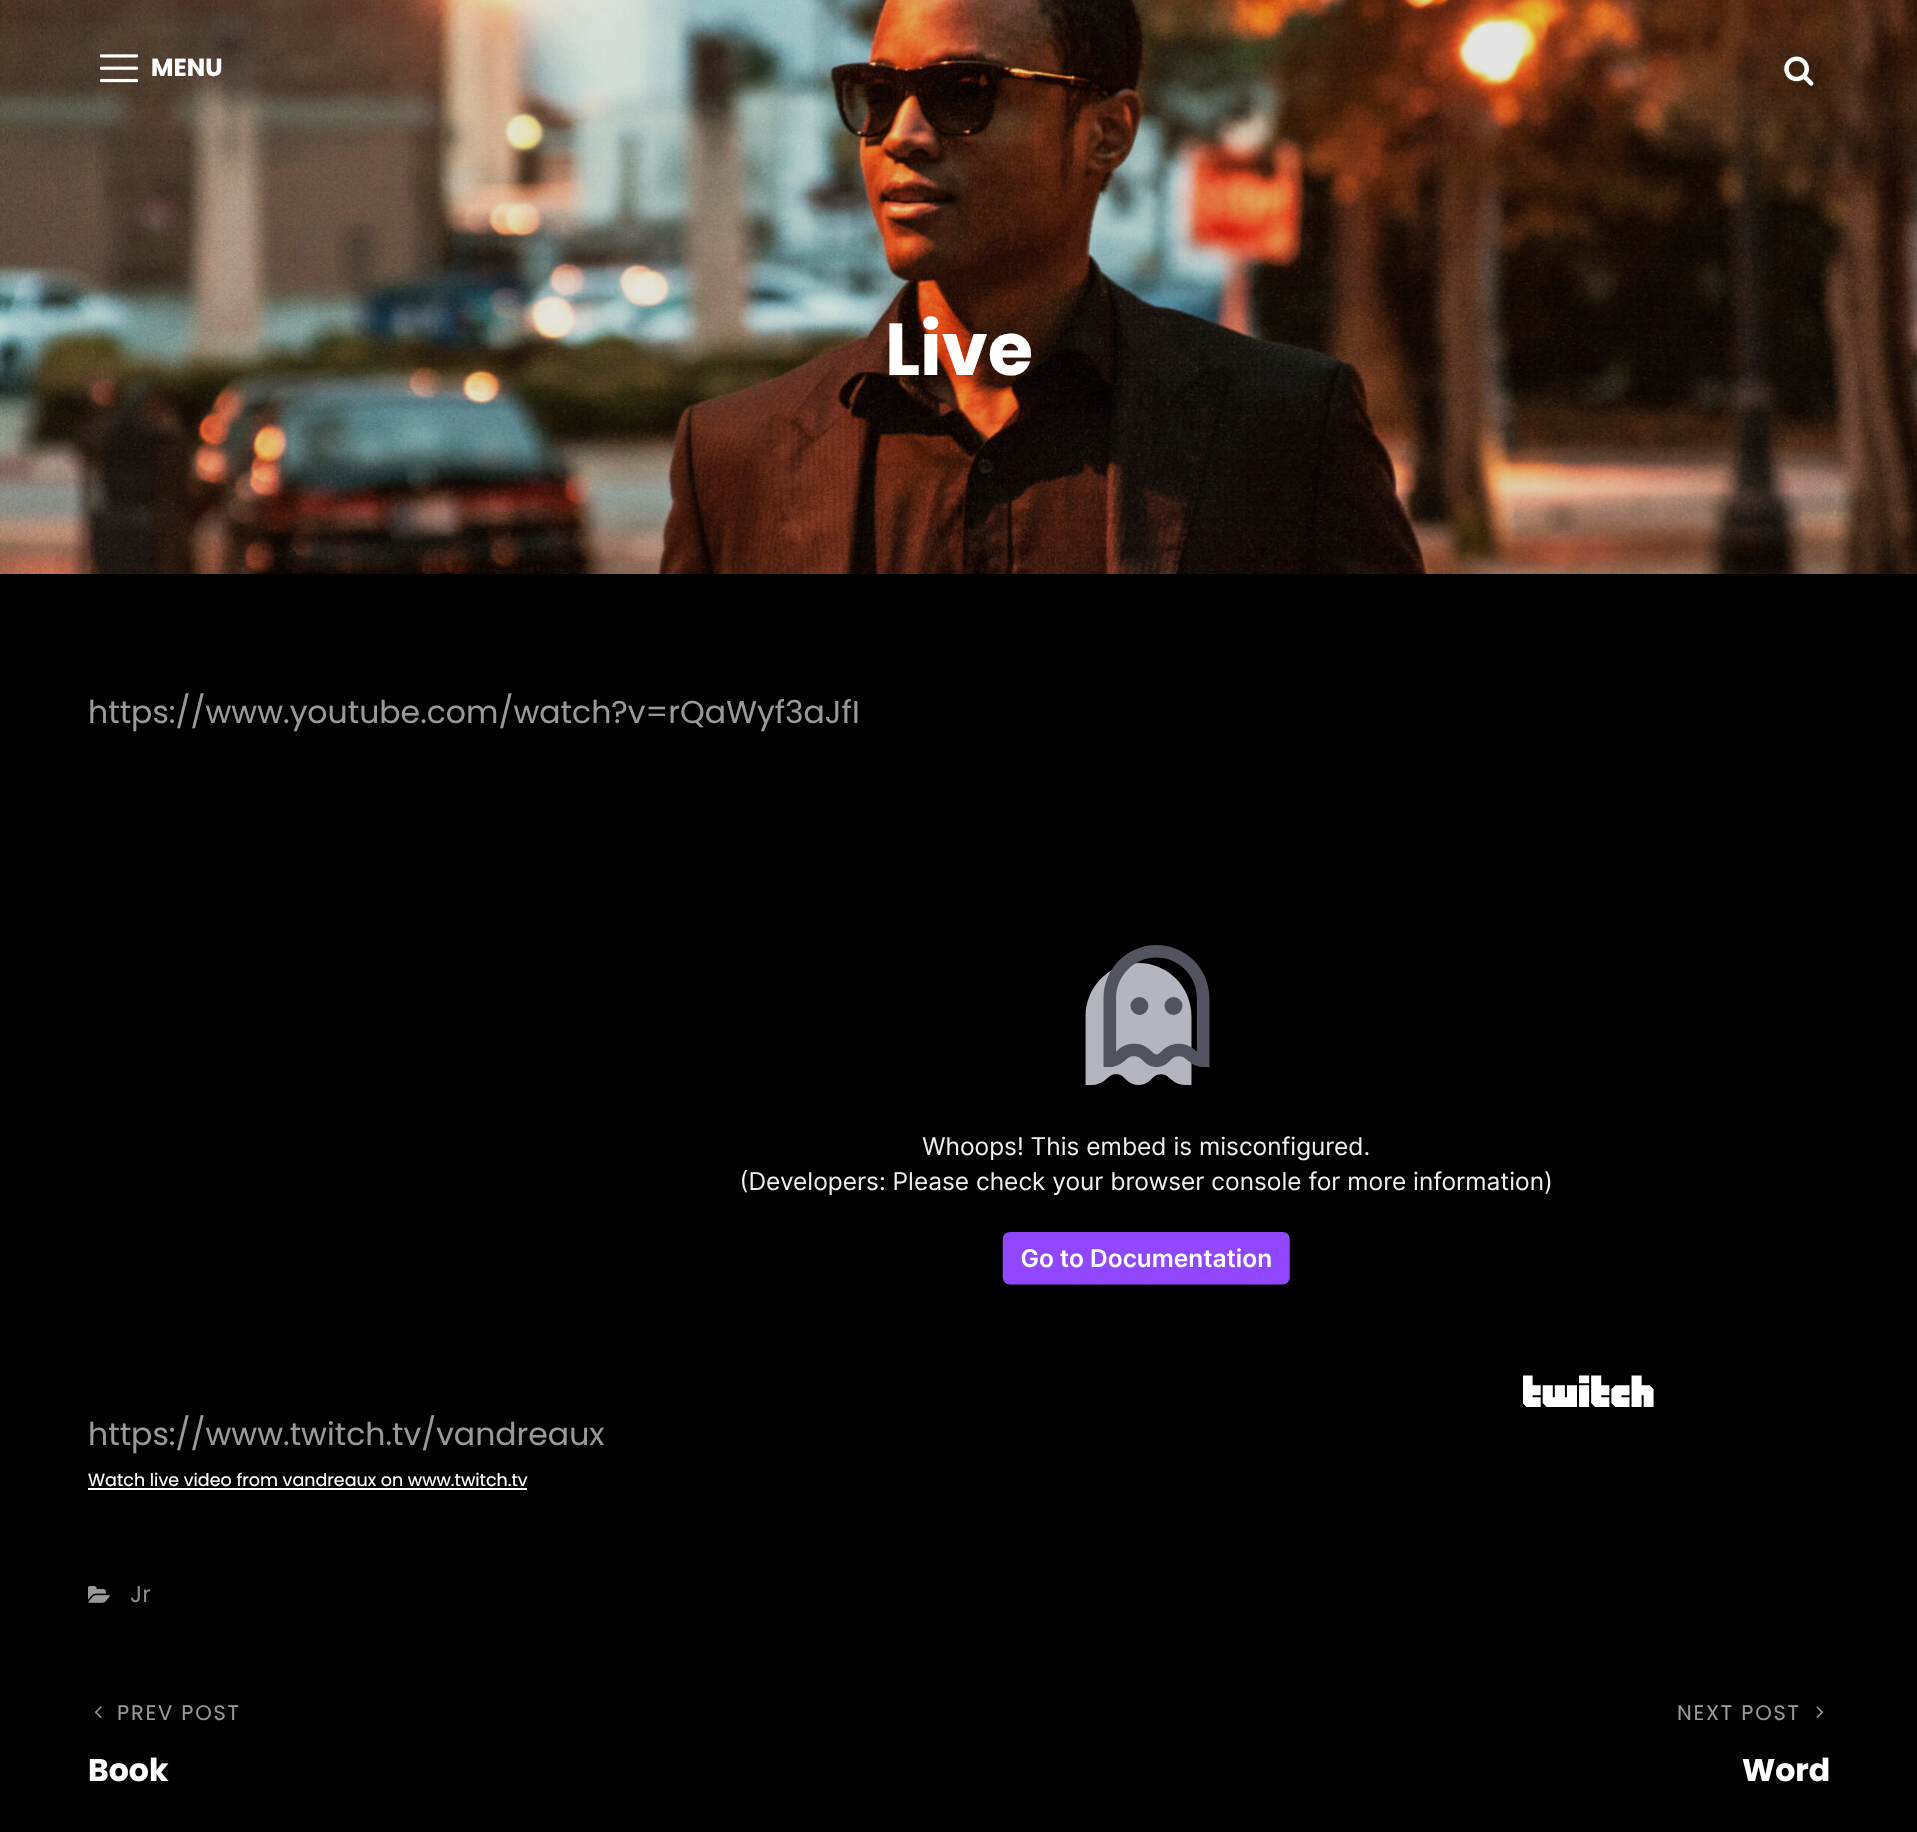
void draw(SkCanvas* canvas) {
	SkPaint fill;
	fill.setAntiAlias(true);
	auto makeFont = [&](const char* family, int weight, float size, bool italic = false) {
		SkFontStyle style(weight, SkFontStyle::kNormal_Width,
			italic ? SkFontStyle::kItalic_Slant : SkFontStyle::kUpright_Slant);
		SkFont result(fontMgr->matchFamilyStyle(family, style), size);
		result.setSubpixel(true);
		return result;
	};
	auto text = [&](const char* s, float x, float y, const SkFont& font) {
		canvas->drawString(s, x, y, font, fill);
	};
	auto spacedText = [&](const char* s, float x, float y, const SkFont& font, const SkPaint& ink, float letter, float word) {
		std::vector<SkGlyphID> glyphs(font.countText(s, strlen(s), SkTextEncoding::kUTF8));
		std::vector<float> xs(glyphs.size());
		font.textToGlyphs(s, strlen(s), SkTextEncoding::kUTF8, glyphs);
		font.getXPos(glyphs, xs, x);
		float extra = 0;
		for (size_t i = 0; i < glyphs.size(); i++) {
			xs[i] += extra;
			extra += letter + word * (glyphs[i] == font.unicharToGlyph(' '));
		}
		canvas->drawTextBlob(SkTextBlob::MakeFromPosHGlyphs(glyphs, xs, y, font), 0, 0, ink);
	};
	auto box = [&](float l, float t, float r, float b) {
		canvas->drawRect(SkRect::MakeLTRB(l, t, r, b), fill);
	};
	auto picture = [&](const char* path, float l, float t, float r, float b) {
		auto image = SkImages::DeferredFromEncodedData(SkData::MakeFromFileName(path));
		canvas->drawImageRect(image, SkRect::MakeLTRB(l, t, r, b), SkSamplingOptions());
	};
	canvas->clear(0xFF000000);
	picture("image2.png", 0, 0, 1917, 574);
	picture("image0.png", 100, 54, 138, 83);
	picture("image1.png", 1784, 56, 1814, 86);
	picture("image3.png", 742, 945, 1654, 1407);
	fill.setColor(0xFFFFFFFF);
	box(88, 1488, 527, 1490);
	picture("image4.png", 88, 1585, 110, 1603);
	picture("image5.png", 94, 1706, 102, 1718);
	picture("image6.png", 1816, 1706, 1824, 1718);
	auto font1 = makeFont("Poppins", 700, 24.5f);
	text("MENU", 151, 76, font1);
	auto font2 = makeFont("Poppins", 700, 73.5f);
	text("Live", 885, 375, font2);
	auto font3 = makeFont("Poppins", 400, 31.5f);
	fill.setColor(0xFF999999);
	text("https://www.youtube.com/watch?v=rQaWyf3aJfI", 88, 723, font3);
	text("https://www.twitch.tv/vandreaux", 88, 1445, font3);
	auto font4 = makeFont("Poppins", 400, 17.5f);
	fill.setColor(0xFFFFFFFF);
	text("Watch live video from vandreaux on www.twitch.tv", 88, 1486, font4);
	auto font5 = makeFont("Poppins", 400, 23);
	fill.setColor(0xFF888888);
	text("Jr", 130, 1602, font5);
	auto font6 = makeFont("Poppins", 400, 21);
	fill.setColor(0xFF999999);
	spacedText("PREV POST", 117, 1720, font6, fill, 1.75f, 0);
	auto font7 = makeFont("Poppins", 700, 31.5f);
	fill.setColor(0xFFFFFFFF);
	text("Book", 88, 1781, font7);
	fill.setColor(0xFF999999);
	spacedText("NEXT POST", 1677, 1720, font6, fill, 1.75f, 0);
	fill.setColor(0xFFFFFFFF);
	text("Word", 1742, 1781, font7);
}
